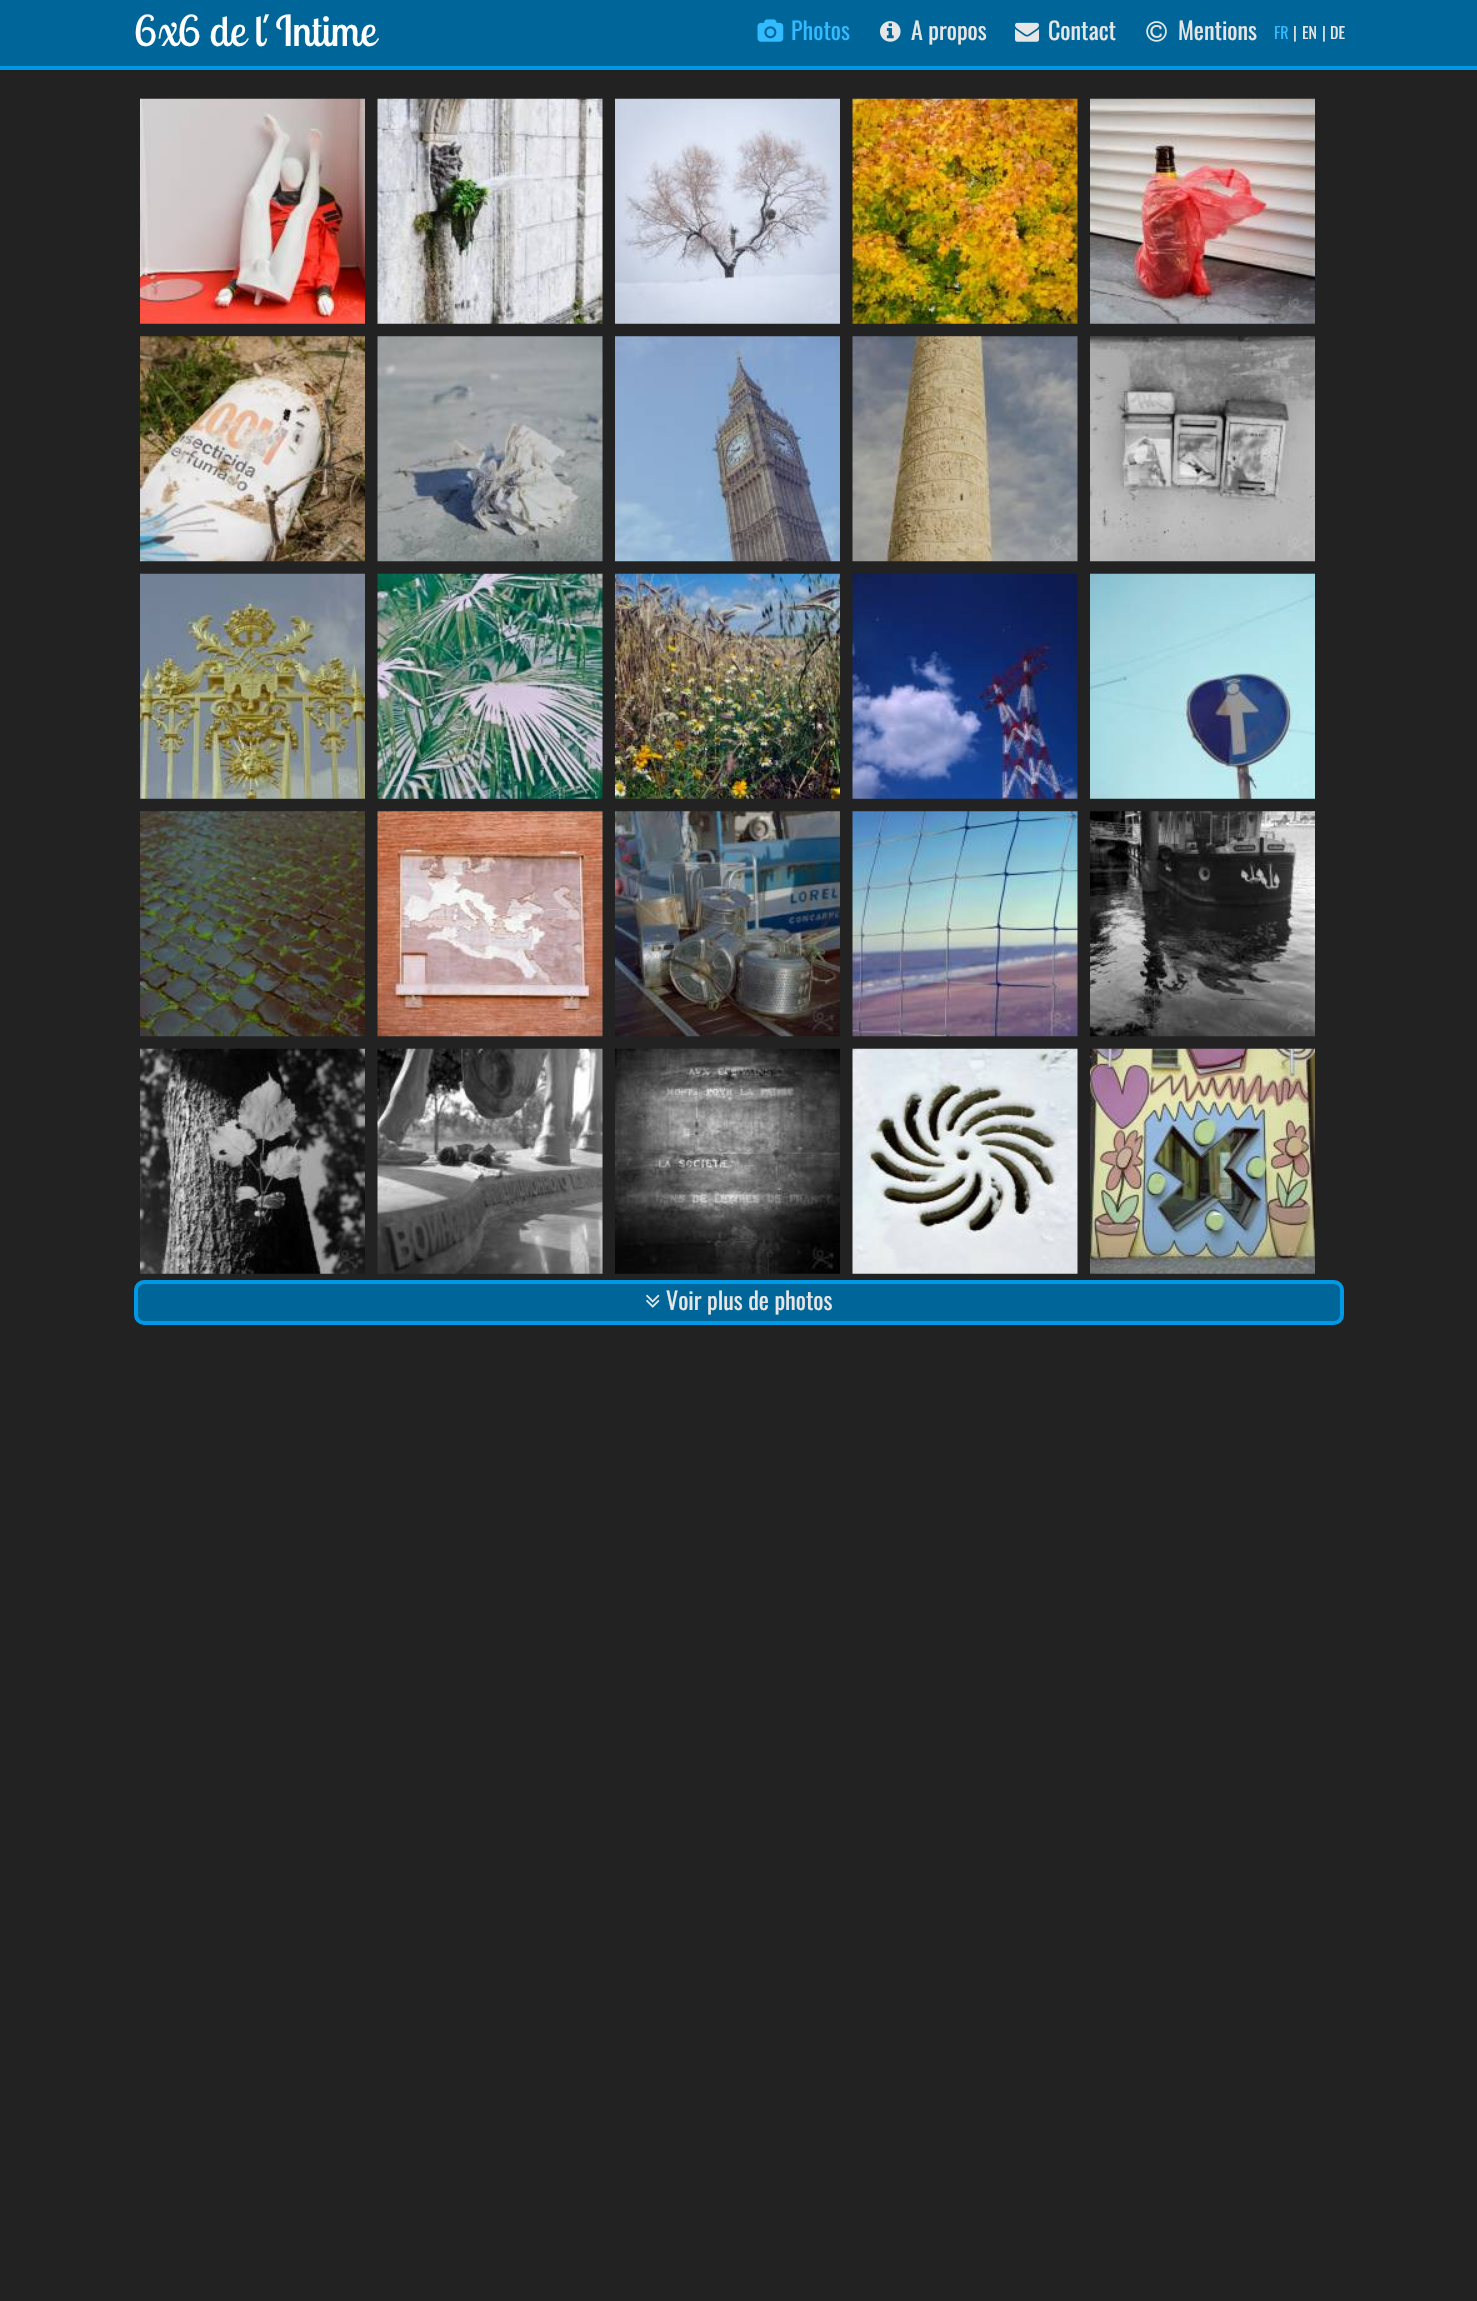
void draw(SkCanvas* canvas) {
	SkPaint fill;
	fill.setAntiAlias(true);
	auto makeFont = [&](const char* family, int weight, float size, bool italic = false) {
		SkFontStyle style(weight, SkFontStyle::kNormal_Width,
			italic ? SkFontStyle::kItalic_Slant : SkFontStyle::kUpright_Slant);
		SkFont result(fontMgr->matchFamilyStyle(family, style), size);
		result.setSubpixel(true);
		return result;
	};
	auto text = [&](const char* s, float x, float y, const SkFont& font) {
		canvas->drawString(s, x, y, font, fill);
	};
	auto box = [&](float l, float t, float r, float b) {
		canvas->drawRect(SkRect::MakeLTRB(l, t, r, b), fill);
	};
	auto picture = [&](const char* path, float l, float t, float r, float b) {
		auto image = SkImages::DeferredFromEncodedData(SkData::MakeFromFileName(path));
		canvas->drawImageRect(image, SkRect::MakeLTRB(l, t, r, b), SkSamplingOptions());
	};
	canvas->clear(0xFF222222);
	fill.setColor(0xFF006699);
	box(0, 0, 1477, 66);
	fill.setColor(0xFF0099E5);
	box(0, 66, 1477, 70);
	picture("image0.png", 757, 19, 784, 42);
	picture("image1.png", 880, 21, 901, 42);
	picture("image2.png", 1015, 22, 1039, 42);
	picture("image3.png", 1146, 21, 1167, 42);
	picture("image4.png", 140, 98, 365, 324);
	picture("image5.png", 377, 98, 603, 324);
	picture("image6.png", 615, 98, 840, 324);
	picture("image7.png", 852, 98, 1078, 324);
	picture("image8.png", 1090, 98, 1315, 324);
	picture("image9.png", 140, 336, 365, 562);
	picture("image10.png", 377, 336, 603, 562);
	picture("image11.png", 615, 336, 840, 562);
	picture("image12.png", 852, 336, 1078, 562);
	picture("image13.png", 1090, 336, 1315, 562);
	picture("image14.png", 140, 573, 365, 799);
	picture("image15.png", 377, 573, 603, 799);
	picture("image16.png", 615, 573, 840, 799);
	picture("image17.png", 852, 573, 1078, 799);
	picture("image18.png", 1090, 573, 1315, 799);
	picture("image19.png", 140, 811, 365, 1037);
	picture("image20.png", 377, 811, 603, 1037);
	picture("image21.png", 615, 811, 840, 1037);
	picture("image22.png", 852, 811, 1078, 1037);
	picture("image23.png", 1090, 811, 1315, 1037);
	picture("image24.png", 140, 1048, 365, 1274);
	picture("image25.png", 377, 1048, 603, 1274);
	picture("image26.png", 615, 1048, 840, 1274);
	picture("image27.png", 852, 1048, 1078, 1274);
	picture("image28.png", 1090, 1048, 1315, 1274);
	fill.setColor(0xFF006699);
	canvas->drawRoundRect(SkRect::MakeLTRB(136, 1282, 1342, 1323), 8, 8, fill);
	fill.setStyle(SkPaint::kStroke_Style);
	fill.setStrokeWidth(4);
	fill.setColor(0xFF0099E5);
	canvas->drawRoundRect(SkRect::MakeLTRB(136, 1282, 1342, 1323), 8, 8, fill);
	picture("image29.png", 646, 1294, 660, 1308);
	auto font1 = makeFont("Lobster Two", 400, 42);
	fill.setStyle(SkPaint::kFill_Style);
	fill.setColor(0xFFFFFFFF);
	text("6x6 de l´Intime", 134, 46, font1);
	auto font2 = makeFont("Oswald", 400, 24);
	fill.setColor(0xFF33BBFF);
	text("Photos", 791, 40, font2);
	fill.setColor(0xFFE6E6E6);
	text("A propos", 911, 40, font2);
	text("Contact", 1048, 40, font2);
	text("Mentions", 1178, 40, font2);
	auto font3 = makeFont("Oswald", 400, 16);
	fill.setColor(0xFF33BBFF);
	text("FR", 1274, 39, font3);
	fill.setColor(0xFFE6E6E6);
	text("|", 1293, 39, font3);
	text("EN", 1302, 39, font3);
	text("|", 1322, 39, font3);
	text("DE", 1330, 39, font3);
	text("Voir plus de photos", 666, 1310, font2);
}
